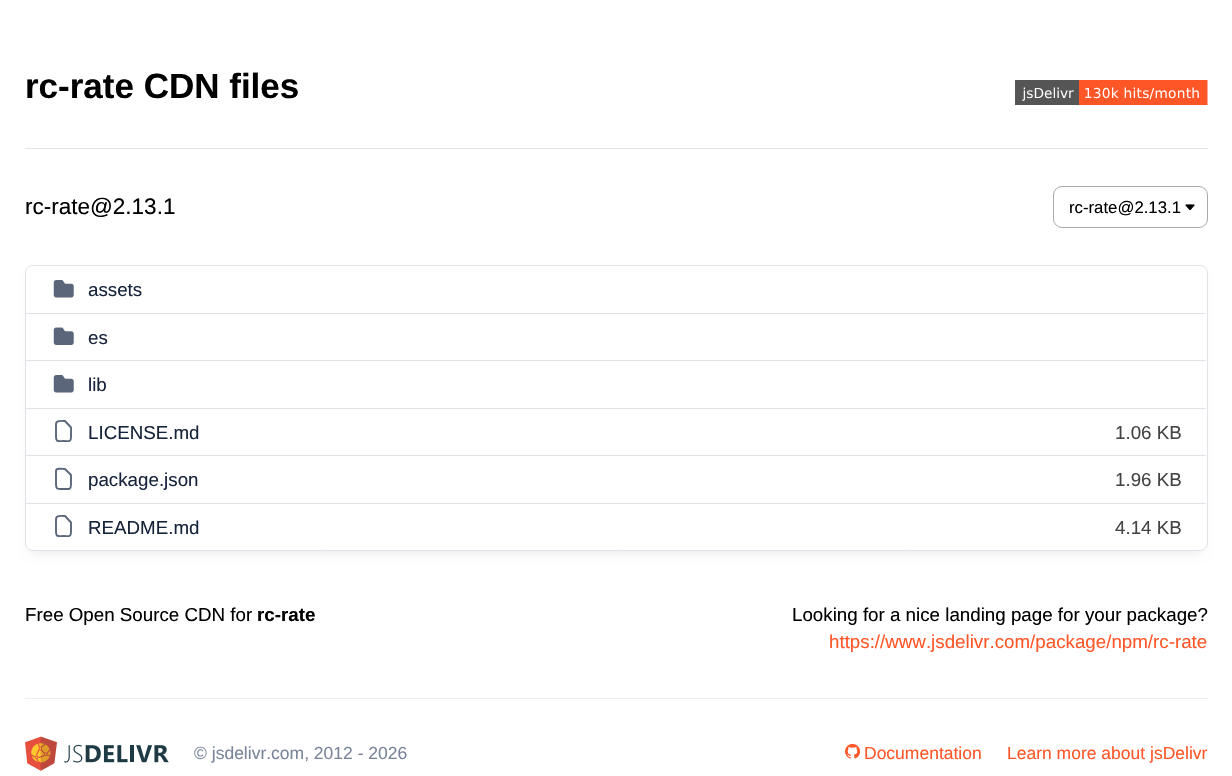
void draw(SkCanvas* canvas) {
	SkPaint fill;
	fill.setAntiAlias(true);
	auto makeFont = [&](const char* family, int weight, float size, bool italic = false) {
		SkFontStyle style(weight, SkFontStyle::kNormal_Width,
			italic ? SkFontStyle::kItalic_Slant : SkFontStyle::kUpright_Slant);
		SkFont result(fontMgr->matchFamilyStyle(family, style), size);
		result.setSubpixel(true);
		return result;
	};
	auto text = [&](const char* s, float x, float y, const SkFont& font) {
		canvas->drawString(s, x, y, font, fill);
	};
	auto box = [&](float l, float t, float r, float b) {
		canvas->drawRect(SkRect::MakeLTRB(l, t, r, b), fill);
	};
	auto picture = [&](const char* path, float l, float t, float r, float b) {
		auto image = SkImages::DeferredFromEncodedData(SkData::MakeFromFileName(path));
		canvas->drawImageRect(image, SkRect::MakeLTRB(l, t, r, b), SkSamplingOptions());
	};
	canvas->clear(0xFFFFFFFF);
	picture("image0.png", 1015, 80, 1208, 105);
	fill.setColor(0xFFE5E5E5);
	box(25, 148, 1208, 149);
	picture("image1.png", 1185, 204, 1195, 211);
	fill.setStyle(SkPaint::kStroke_Style);
	fill.setStrokeWidth(1);
	fill.setColor(0xFFAAAAAA);
	canvas->drawRoundRect(SkRect::MakeLTRB(1053.5f, 186.5f, 1207.5f, 227.5f), 8.5f, 8.5f, fill);
	canvas->save();
	canvas->clipPath(SkPathBuilder(SkPathFillType::kEvenOdd).moveTo(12, 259).lineTo(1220, 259).lineTo(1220, 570).lineTo(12, 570).close().moveTo(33, 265).lineTo(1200, 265).cubicTo(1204.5f, 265, 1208, 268.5f, 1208, 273).lineTo(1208, 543).cubicTo(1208, 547.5f, 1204.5f, 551, 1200, 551).lineTo(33, 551).cubicTo(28.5f, 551, 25, 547.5f, 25, 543).lineTo(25, 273).cubicTo(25, 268.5f, 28.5f, 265, 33, 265).close().detach(), true);
	fill.setStyle(SkPaint::kFill_Style);
	fill.setColor(0xFFDFE3E7);
	fill.setMaskFilter(SkMaskFilter::MakeBlur(kNormal_SkBlurStyle, 6));
	canvas->drawRoundRect(SkRect::MakeLTRB(31, 278, 1201, 551), 1, 1, fill);
	fill.setMaskFilter(nullptr);
	canvas->restore();
	fill.setStyle(SkPaint::kStroke_Style);
	canvas->drawRoundRect(SkRect::MakeLTRB(25.5f, 265.5f, 1207.5f, 550.5f), 7.5f, 7.5f, fill);
	fill.setStyle(SkPaint::kFill_Style);
	box(26, 313, 1206, 314);
	picture("image2.png", 53, 280, 74, 298);
	box(26, 360, 1206, 361);
	picture("image3.png", 53, 327, 74, 345);
	box(26, 408, 1206, 409);
	picture("image2.png", 53, 375, 74, 393);
	box(26, 455, 1206, 456);
	fill.setStyle(SkPaint::kStroke_Style);
	fill.setStrokeWidth(1.9f);
	fill.setStrokeCap(SkPaint::kRound_Cap);
	fill.setStrokeJoin(SkPaint::kRound_Join);
	fill.setColor(0xFF5C667A);
	canvas->drawPath(SkPathBuilder().moveTo(56, 424).cubicTo(56, 420, 62.5f, 421, 65, 421).lineTo(71, 427.5f).lineTo(71, 437).cubicTo(71, 442.5f, 68.5f, 441, 64, 441).cubicTo(58, 441, 56, 442.5f, 56, 436).close().detach(), fill);
	fill.setStyle(SkPaint::kFill_Style);
	fill.setColor(0xFFDFE3E7);
	box(26, 503, 1206, 504);
	fill.setStyle(SkPaint::kStroke_Style);
	fill.setColor(0xFF5C667A);
	canvas->drawPath(SkPathBuilder().moveTo(56, 471).cubicTo(56, 467.5f, 62.5f, 469, 65, 469).lineTo(71, 475).lineTo(71, 484.5f).cubicTo(71, 490, 68.5f, 489, 64, 489).cubicTo(58, 489, 56, 490, 56, 484).close().detach(), fill);
	canvas->drawPath(SkPathBuilder().moveTo(56, 519).cubicTo(56, 515, 62.5f, 516, 65, 516).lineTo(71, 522.5f).lineTo(71, 532).cubicTo(71, 537.5f, 68.5f, 536, 64, 536).cubicTo(58, 536, 56, 537.5f, 56, 531).close().detach(), fill);
	fill.setStyle(SkPaint::kFill_Style);
	fill.setColor(0xFFEDF0F2);
	box(25, 698, 1208, 699);
	picture("image4.png", 25, 736, 169, 771);
	picture("image5.png", 845, 744, 860, 759);
	auto font1 = makeFont("Liberation Sans", 700, 35);
	fill.setColor(0xFF000000);
	text("rc-rate CDN files", 25, 98, font1);
	auto font2 = makeFont("Liberation Sans", 400, 22.5f);
	text("rc-rate@2.13.1", 25, 214, font2);
	auto font3 = makeFont("Liberation Sans", 400, 16.75f);
	text("rc-rate@2.13.1", 1069, 213, font3);
	auto font4 = makeFont("Liberation Sans", 400, 18.75f);
	fill.setColor(0xFF17233B);
	text("assets", 88, 296, font4);
	text("es", 88, 344, font4);
	text("lib", 88, 391, font4);
	text("LICENSE.md", 88, 439, font4);
	fill.setColor(0xFF444444);
	text("1.06 KB", 1115, 439, font4);
	fill.setColor(0xFF17233B);
	text("package.json", 88, 486, font4);
	fill.setColor(0xFF444444);
	text("1.96 KB", 1115, 486, font4);
	fill.setColor(0xFF17233B);
	text("README.md", 88, 534, font4);
	fill.setColor(0xFF444444);
	text("4.14 KB", 1115, 534, font4);
	fill.setColor(0xFF000000);
	text("Free Open Source CDN for", 25, 621, font4);
	auto font5 = makeFont("Liberation Sans", 700, 18.75f);
	text("rc-rate", 257, 621, font5);
	text("Looking for a nice landing page for your package?", 792, 621, font4);
	fill.setColor(0xFFFF5627);
	text("https://www.jsdelivr.com/package/npm/rc-rate", 829, 648, font4);
	auto font6 = makeFont("Liberation Sans", 400, 17.5f);
	fill.setColor(0xFF79849A);
	text("© jsdelivr.com, 2012 - 2026", 194, 759, font6);
	fill.setColor(0xFFFF5627);
	text("Documentation", 864, 759, font6);
	text("Learn more about jsDelivr", 1007, 759, font6);
}
